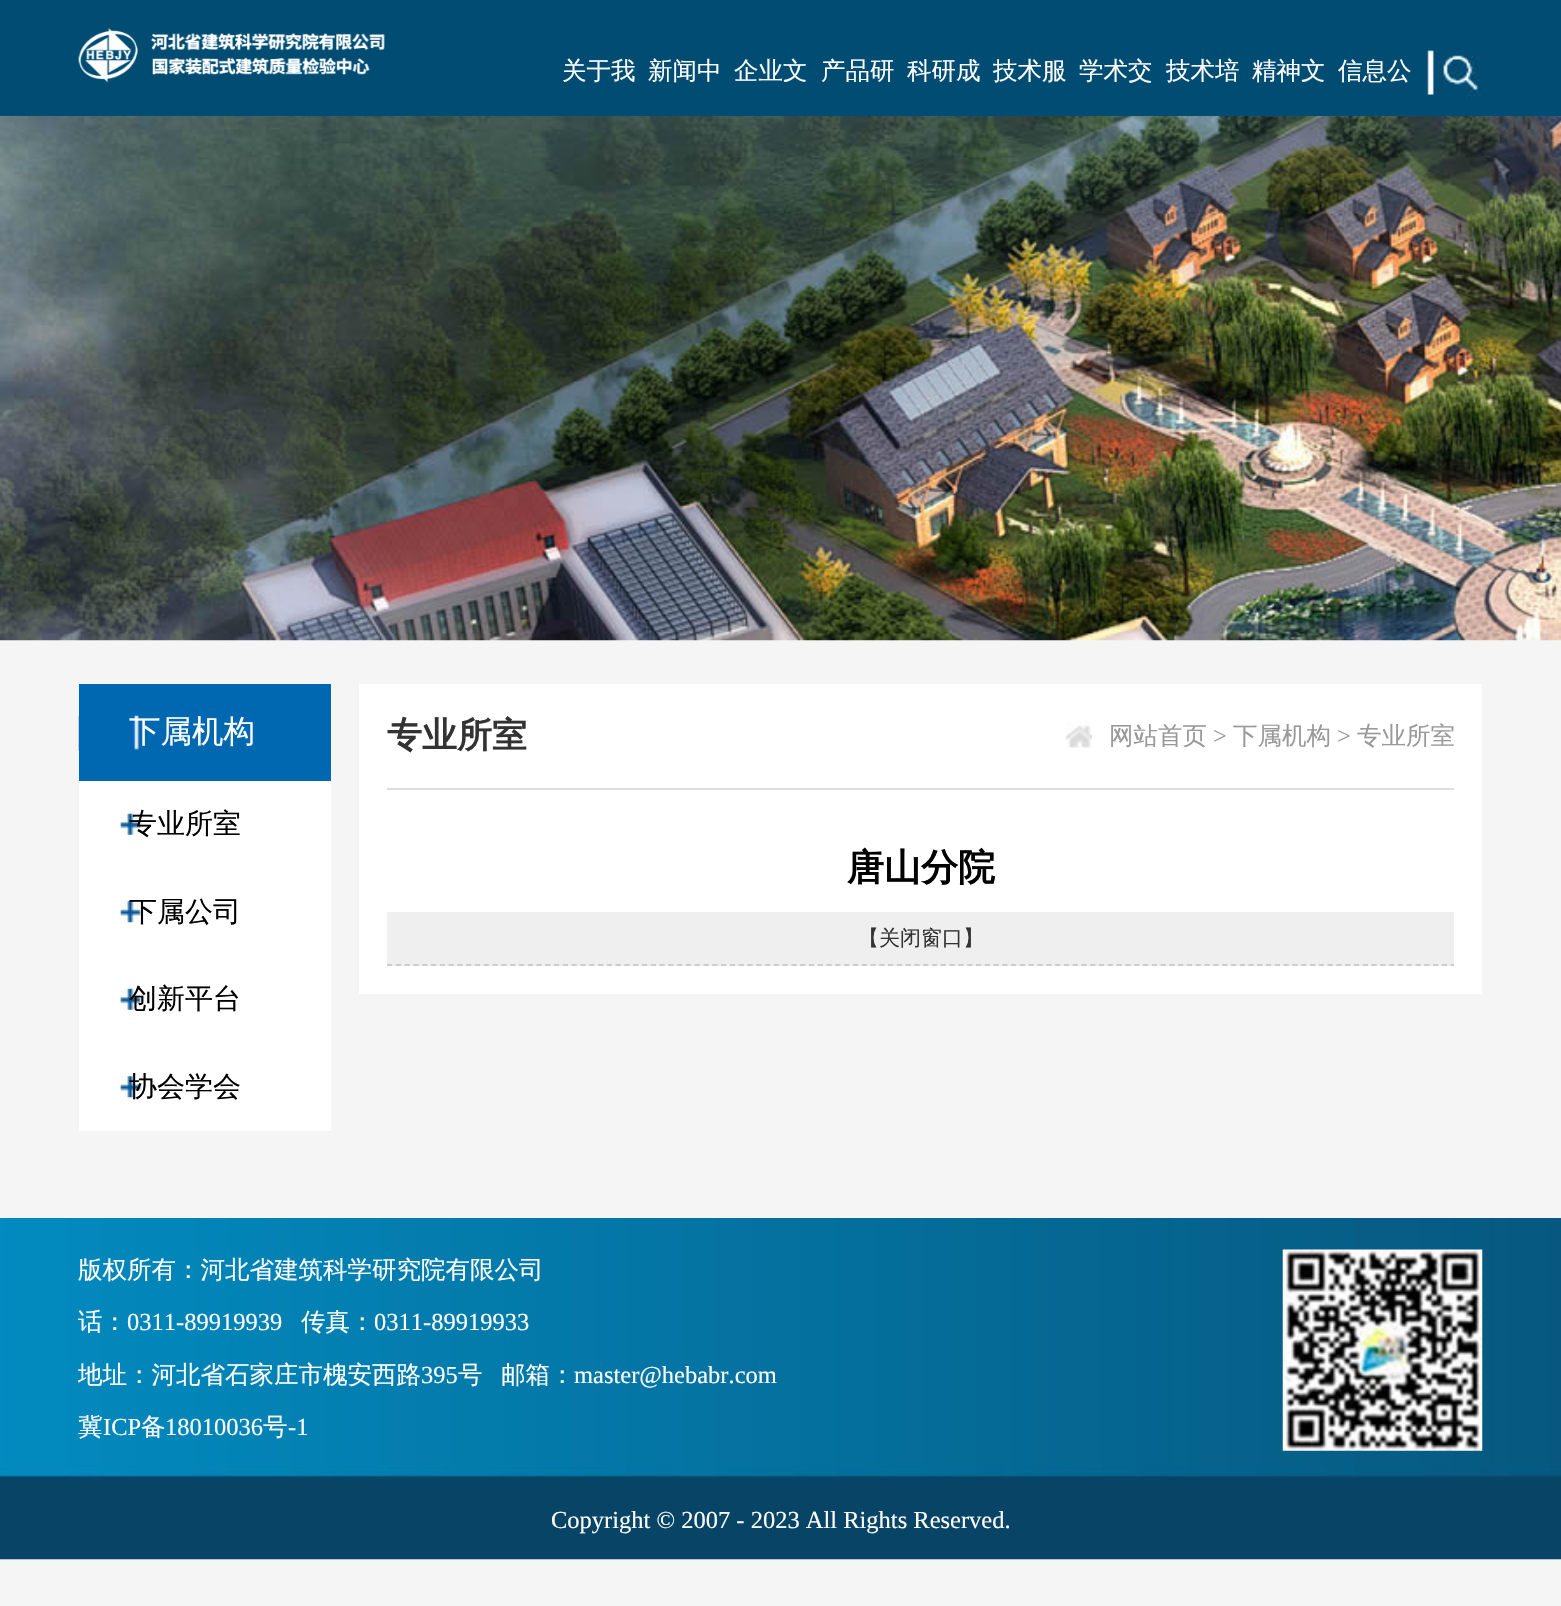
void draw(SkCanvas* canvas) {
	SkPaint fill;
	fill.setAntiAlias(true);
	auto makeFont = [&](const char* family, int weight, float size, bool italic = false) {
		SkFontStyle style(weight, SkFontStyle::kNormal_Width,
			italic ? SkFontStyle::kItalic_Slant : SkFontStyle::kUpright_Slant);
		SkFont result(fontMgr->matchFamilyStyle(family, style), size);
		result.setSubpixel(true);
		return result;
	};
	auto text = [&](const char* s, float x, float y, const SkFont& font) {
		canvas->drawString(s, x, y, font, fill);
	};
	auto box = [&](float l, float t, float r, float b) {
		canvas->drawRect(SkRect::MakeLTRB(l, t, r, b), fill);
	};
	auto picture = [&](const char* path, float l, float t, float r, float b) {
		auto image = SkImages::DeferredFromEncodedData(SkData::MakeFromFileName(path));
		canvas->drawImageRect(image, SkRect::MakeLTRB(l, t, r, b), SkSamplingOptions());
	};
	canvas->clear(0xFFF5F5F5);
	fill.setColor(0xFF004C73);
	box(0, 0, 1561, 116);
	picture("image0.png", 78, 28, 385, 83);
	picture("image1.png", 1427, 50, 1434, 95);
	picture("image2.png", 1438, 55, 1481, 98);
	picture("image3.png", 0, 116, 1561, 641);
	fill.setColor(0xFFFFFFFF);
	box(79, 781, 331, 1131);
	fill.setColor(0xFF0067B1);
	box(79, 684, 331, 781);
	picture("image4.png", 78, 715, 140, 751);
	picture("image5.png", 120, 813, 145, 835);
	picture("image6.png", 120, 901, 145, 923);
	picture("image5.png", 120, 988, 145, 1010);
	picture("image6.png", 120, 1076, 145, 1098);
	fill.setColor(0xFFFFFFFF);
	box(359, 684, 1482, 994);
	fill.setColor(0xFFDDDDDD);
	box(387, 788, 1454, 790);
	picture("image7.png", 1065, 721, 1092, 748);
	fill.setColor(0xFFEFEFEF);
	box(387, 912, 1454, 966);
	fill.setStyle(SkPaint::kStroke_Style);
	fill.setStrokeWidth(1.8f);
	fill.setColor(0xFFCCCCCC);
	fill.setPathEffect(SkDashPathEffect::Make({{5.25f, 3.54f}}, 0));
	canvas->drawPath(SkPathBuilder().moveTo(387, 965).lineTo(1454, 965).detach(), fill);
	fill.setPathEffect(nullptr);
	picture("image8.png", 0, 1218, 1561, 1560);
	picture("image9.png", 1282, 1249, 1483, 1451);
	auto font1 = makeFont("WenQuanYi Zen Hei", 500, 24.5f);
	fill.setStyle(SkPaint::kFill_Style);
	fill.setColor(0xFFFFFFFF);
	text("关于我", 562, 79, font1);
	text("新闻中", 648, 79, font1);
	text("企业文", 734, 79, font1);
	text("产品研", 821, 79, font1);
	text("科研成", 907, 79, font1);
	text("技术服", 993, 79, font1);
	text("学术交", 1079, 79, font1);
	text("技术培", 1166, 79, font1);
	text("精神文", 1252, 79, font1);
	text("信息公", 1338, 79, font1);
	auto font2 = makeFont("WenQuanYi Zen Hei", 500, 31.5f);
	text("下属机构", 129, 742, font2);
	auto font3 = makeFont("WenQuanYi Zen Hei", 500, 28);
	fill.setColor(0xFF000000);
	text("专业所室", 129, 833, font3);
	text("下属公司", 129, 921, font3);
	text("创新平台", 129, 1008, font3);
	text("协会学会", 129, 1096, font3);
	auto font4 = makeFont("WenQuanYi Zen Hei", 700, 35);
	fill.setColor(0xFF333333);
	text("专业所室", 387, 747, font4);
	fill.setColor(0xFF999999);
	text("网站首页", 1109, 744, font1);
	auto font5 = makeFont("Liberation Serif", 400, 24.5f);
	text(">", 1213, 744, font5);
	text("下属机构", 1233, 744, font1);
	text(">", 1337, 744, font5);
	text("专业所室", 1357, 744, font1);
	auto font6 = makeFont("WenQuanYi Zen Hei", 700, 37);
	fill.setColor(0xFF000000);
	text("唐山分院", 847, 880, font6);
	auto font7 = makeFont("WenQuanYi Zen Hei", 500, 21);
	fill.setColor(0xFF333333);
	text("【关闭窗口】", 858, 945, font7);
	fill.setColor(0xFFFFFFFF);
	text("版权所有：河北省建筑科学研究院有限公司", 78, 1278, font1);
	text("话：", 78, 1330, font1);
	text("0311-89919939", 127, 1330, font5);
	text("传真：", 301, 1330, font1);
	text("0311-89919933", 374, 1330, font5);
	text("地址：河北省石家庄市槐安西路", 78, 1383, font1);
	text("395", 421, 1383, font5);
	text("号", 458, 1383, font1);
	text("邮箱：", 501, 1383, font1);
	text("master@hebabr.com", 574, 1383, font5);
	text("冀", 78, 1435, font1);
	text("ICP", 103, 1435, font5);
	text("备", 141, 1435, font1);
	text("18010036", 165, 1435, font5);
	text("号", 263, 1435, font1);
	text("-1", 288, 1435, font5);
	text("Copyright © 2007 - 2023 All Rights Reserved.", 551, 1528, font5);
}
